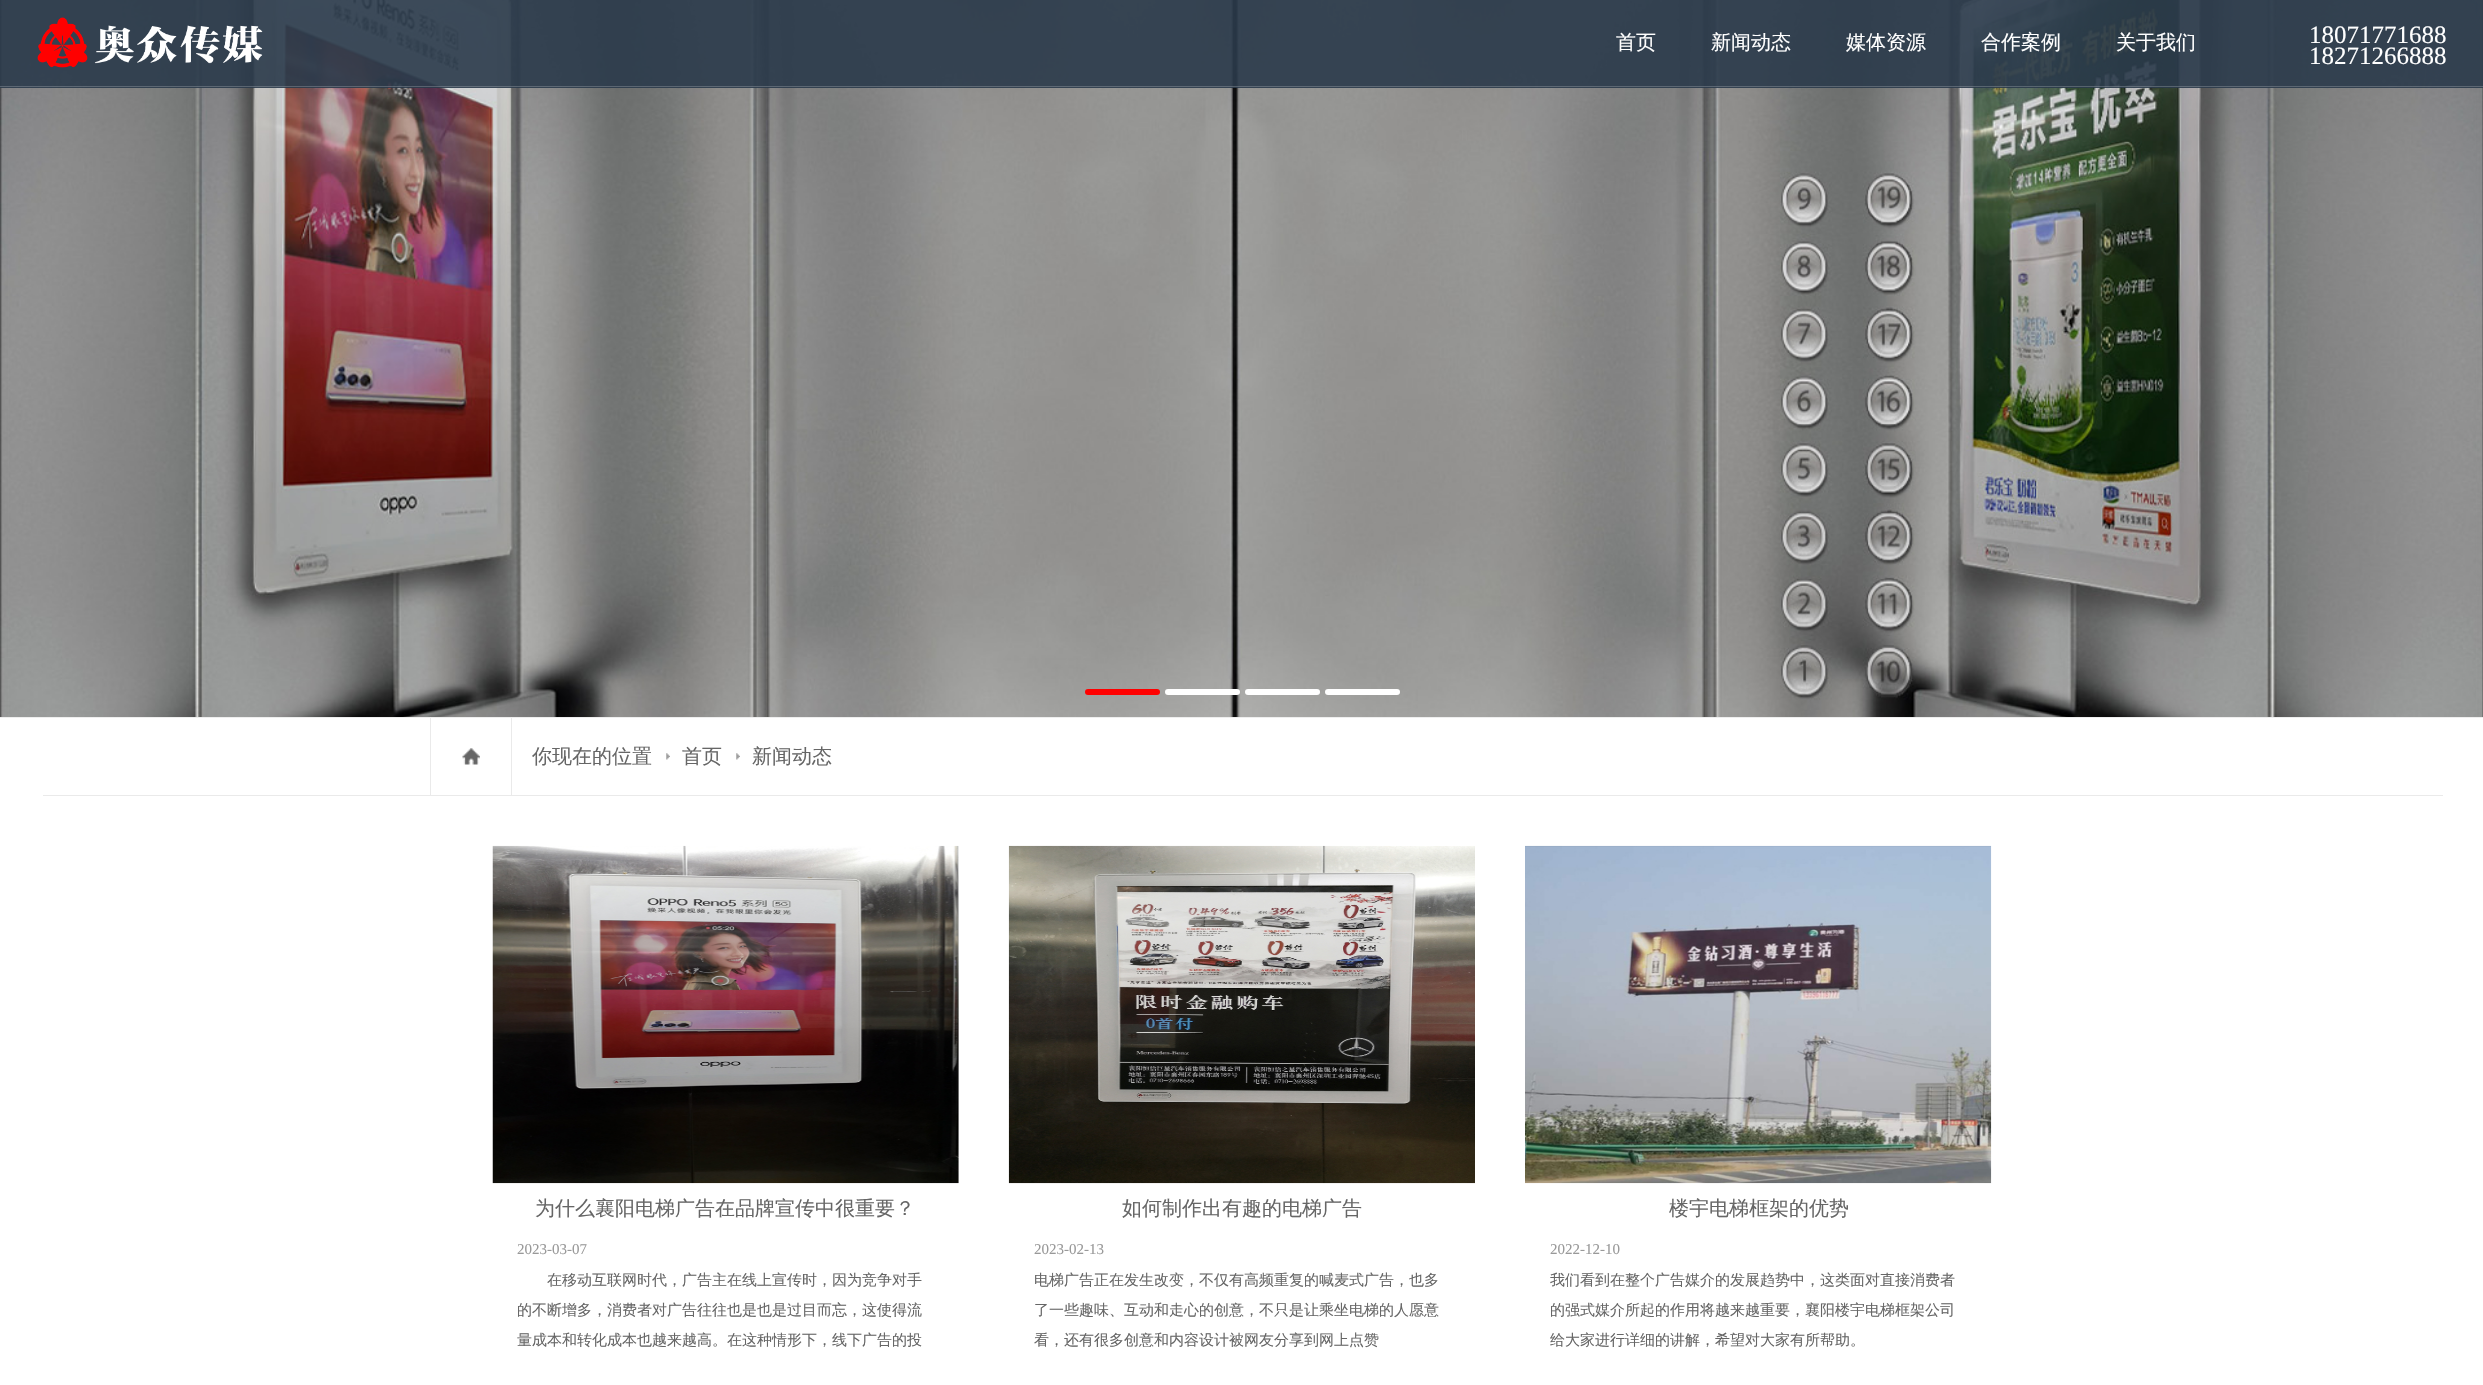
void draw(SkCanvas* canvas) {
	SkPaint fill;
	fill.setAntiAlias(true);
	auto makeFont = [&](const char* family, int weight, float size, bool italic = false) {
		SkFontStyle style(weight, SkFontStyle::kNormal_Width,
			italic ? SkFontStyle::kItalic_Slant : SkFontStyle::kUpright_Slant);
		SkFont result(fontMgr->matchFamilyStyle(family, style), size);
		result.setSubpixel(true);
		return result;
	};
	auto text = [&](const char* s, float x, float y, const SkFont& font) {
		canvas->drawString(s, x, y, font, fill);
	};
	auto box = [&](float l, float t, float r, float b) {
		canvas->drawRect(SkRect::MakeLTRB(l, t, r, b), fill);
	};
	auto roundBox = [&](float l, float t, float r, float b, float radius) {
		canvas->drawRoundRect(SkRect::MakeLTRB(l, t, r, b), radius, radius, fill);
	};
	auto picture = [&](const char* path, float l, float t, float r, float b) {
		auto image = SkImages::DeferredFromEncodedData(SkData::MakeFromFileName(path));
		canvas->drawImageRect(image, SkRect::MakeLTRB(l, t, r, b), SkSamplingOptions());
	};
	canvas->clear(0xFFFFFFFF);
	fill.setColor(0xFFEEEEEE);
	box(0, 717, 2483, 718);
	picture("image0.png", 0, 0, 2483, 717);
	fill.setColor(0xFFFF0000);
	roundBox(1085, 689, 1160, 695, 3);
	fill.setColor(0xFFFFFFFF);
	roundBox(1165, 689, 1240, 695, 3);
	roundBox(1245, 689, 1320, 695, 3);
	roundBox(1325, 689, 1400, 695, 3);
	fill.setColor(0xE62A3A4A);
	box(0, 0, 2483, 88);
	fill.setColor(0x33FFFFFF);
	box(0, 86, 2483, 87);
	picture("image1.png", 37, 17, 263, 68);
	fill.setColor(0xFFEAEAEA);
	box(43, 795, 2443, 796);
	picture("image2.png", 462, 748, 480, 765);
	box(511, 718, 512, 795);
	box(430, 718, 431, 795);
	picture("image3.png", 666, 753, 670, 760);
	picture("image3.png", 736, 753, 740, 760);
	picture("image4.png", 492, 845, 959, 1184);
	picture("image5.png", 1008, 845, 1475, 1184);
	picture("image6.png", 1525, 845, 1992, 1184);
	auto font1 = makeFont("WenQuanYi Zen Hei", 500, 20);
	fill.setColor(0xFFFFFFFF);
	text("首页", 1616, 49, font1);
	text("新闻动态", 1711, 49, font1);
	text("媒体资源", 1846, 49, font1);
	text("合作案例", 1981, 49, font1);
	text("关于我们", 2116, 49, font1);
	auto font2 = makeFont("Liberation Serif", 400, 25);
	text("18071771688", 2309, 43, font2);
	text("18271266888", 2309, 64, font2);
	fill.setColor(0xFF666666);
	text("你现在的位置", 532, 763, font1);
	text("首页", 682, 763, font1);
	text("新闻动态", 752, 763, font1);
	text("为什么襄阳电梯广告在品牌宣传中很重要？", 535, 1215, font1);
	auto font3 = makeFont("Liberation Serif", 400, 15);
	fill.setColor(0xFF999999);
	text("2023-03-07", 517, 1254, font3);
	auto font4 = makeFont("WenQuanYi Zen Hei", 500, 15);
	fill.setColor(0xFF666666);
	text("在移动互联网时代，广告主在线上宣传时，因为竞争对手", 547, 1285, font4);
	text("的不断增多，消费者对广告往往也是也是过目而忘，这使得流", 517, 1315, font4);
	text("量成本和转化成本也越来越高。在这种情形下，线下广告的投", 517, 1345, font4);
	text("如何制作出有趣的电梯广告", 1122, 1215, font1);
	fill.setColor(0xFF999999);
	text("2023-02-13", 1034, 1254, font3);
	fill.setColor(0xFF666666);
	text("电梯广告正在发生改变，不仅有高频重复的喊麦式广告，也多", 1034, 1285, font4);
	text("了一些趣味、互动和走心的创意，不只是让乘坐电梯的人愿意", 1034, 1315, font4);
	text("看，还有很多创意和内容设计被网友分享到网上点赞", 1034, 1345, font4);
	text("楼宇电梯框架的优势", 1669, 1215, font1);
	fill.setColor(0xFF999999);
	text("2022-12-10", 1550, 1254, font3);
	fill.setColor(0xFF666666);
	text("我们看到在整个广告媒介的发展趋势中，这类面对直接消费者", 1550, 1285, font4);
	text("的强式媒介所起的作用将越来越重要，襄阳楼宇电梯框架公司", 1550, 1315, font4);
	text("给大家进行详细的讲解，希望对大家有所帮助。", 1550, 1345, font4);
}
